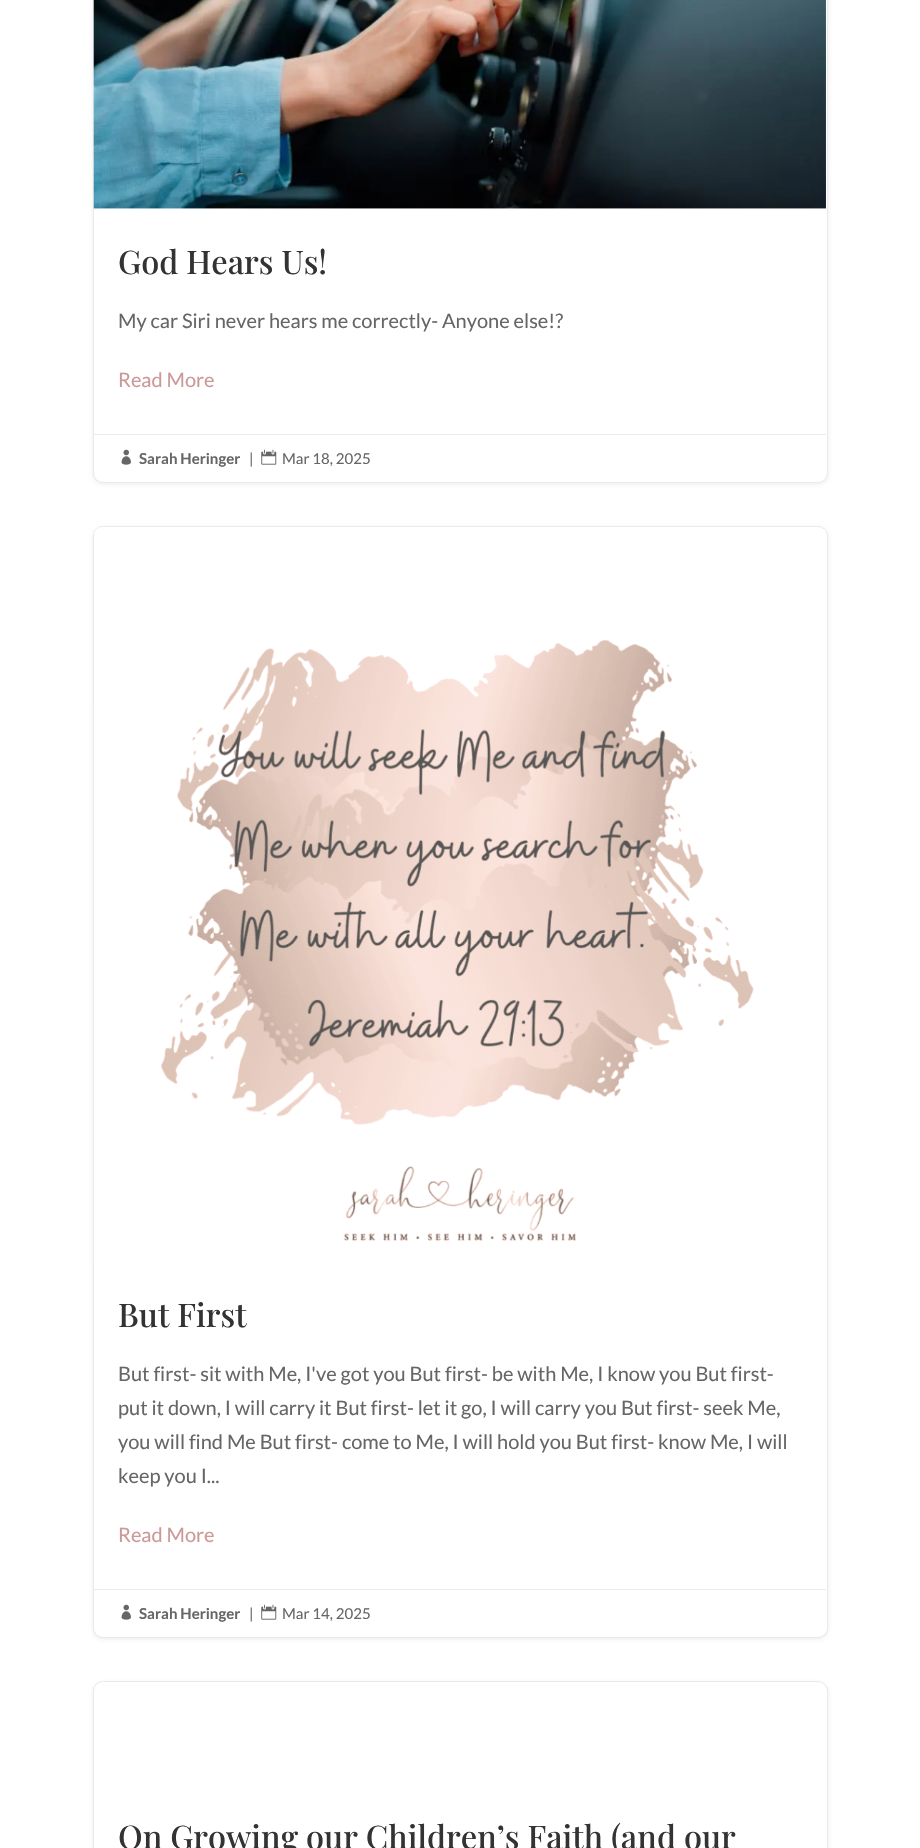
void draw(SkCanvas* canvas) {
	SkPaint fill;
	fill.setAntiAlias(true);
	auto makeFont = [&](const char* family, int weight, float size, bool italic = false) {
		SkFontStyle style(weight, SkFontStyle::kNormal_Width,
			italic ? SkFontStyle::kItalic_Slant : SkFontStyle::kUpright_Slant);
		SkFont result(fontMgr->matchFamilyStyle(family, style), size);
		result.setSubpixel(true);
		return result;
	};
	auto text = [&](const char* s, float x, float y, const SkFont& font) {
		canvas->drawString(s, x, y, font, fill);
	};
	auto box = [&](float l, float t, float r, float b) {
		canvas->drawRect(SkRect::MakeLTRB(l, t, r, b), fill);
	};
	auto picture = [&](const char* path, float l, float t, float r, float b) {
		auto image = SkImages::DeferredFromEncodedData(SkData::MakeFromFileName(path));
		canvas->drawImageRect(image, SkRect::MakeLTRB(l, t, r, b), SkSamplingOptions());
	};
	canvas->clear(0xFFFFFFFF);
	fill.setColor(0x14000000);
	fill.setMaskFilter(SkMaskFilter::MakeBlur(kNormal_SkBlurStyle, 2));
	canvas->drawRoundRect(SkRect::MakeLTRB(93, -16, 828, 484), 10, 10, fill);
	fill.setMaskFilter(nullptr);
	fill.setColor(0xFFFFFFFF);
	canvas->drawRoundRect(SkRect::MakeLTRB(93.5f, -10.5f, 827.5f, 482.5f), 9.5f, 9.5f, fill);
	fill.setStyle(SkPaint::kStroke_Style);
	fill.setStrokeWidth(1);
	fill.setColor(0xFFEAEAEA);
	canvas->drawRoundRect(SkRect::MakeLTRB(93.5f, -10.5f, 827.5f, 482.5f), 9.5f, 9.5f, fill);
	picture("image0.png", 93, 0, 826, 209);
	fill.setStyle(SkPaint::kFill_Style);
	box(94, 434, 826, 435);
	picture("image1.png", 121, 449, 131, 465);
	picture("image2.png", 261, 449, 277, 465);
	fill.setColor(0x14000000);
	fill.setMaskFilter(SkMaskFilter::MakeBlur(kNormal_SkBlurStyle, 2));
	canvas->drawRoundRect(SkRect::MakeLTRB(93, 528, 828, 1639), 10, 10, fill);
	fill.setMaskFilter(nullptr);
	fill.setColor(0xFFFFFFFF);
	canvas->drawRoundRect(SkRect::MakeLTRB(93.5f, 526.5f, 827.5f, 1637.5f), 9.5f, 9.5f, fill);
	fill.setStyle(SkPaint::kStroke_Style);
	fill.setColor(0xFFEAEAEA);
	canvas->drawRoundRect(SkRect::MakeLTRB(93.5f, 526.5f, 827.5f, 1637.5f), 9.5f, 9.5f, fill);
	picture("image3.png", 93, 527, 754, 1260);
	fill.setStyle(SkPaint::kFill_Style);
	box(94, 1589, 826, 1590);
	picture("image1.png", 121, 1604, 131, 1620);
	picture("image2.png", 261, 1604, 277, 1620);
	fill.setColor(0x14000000);
	fill.setMaskFilter(SkMaskFilter::MakeBlur(kNormal_SkBlurStyle, 2));
	canvas->drawRoundRect(SkRect::MakeLTRB(93, 1683, 828, 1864), 10, 10, fill);
	fill.setMaskFilter(nullptr);
	fill.setColor(0xFFFFFFFF);
	canvas->drawRoundRect(SkRect::MakeLTRB(93.5f, 1681.5f, 827.5f, 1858.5f), 9.5f, 9.5f, fill);
	fill.setStyle(SkPaint::kStroke_Style);
	fill.setColor(0xFFEAEAEA);
	canvas->drawRoundRect(SkRect::MakeLTRB(93.5f, 1681.5f, 827.5f, 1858.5f), 9.5f, 9.5f, fill);
	auto font1 = makeFont("Playfair Display", 500, 32.5f);
	fill.setStyle(SkPaint::kFill_Style);
	fill.setColor(0xFF333333);
	text("God Hears Us!", 118, 274, font1);
	auto font2 = makeFont("Lato", 400, 20);
	fill.setColor(0xFF666666);
	text("My car Siri never hears me correctly- Anyone else!?", 118, 328, font2);
	fill.setColor(0xFFCC9999);
	text("Read More", 118, 387, font2);
	auto font3 = makeFont("Lato", 700, 15);
	fill.setColor(0xFF666666);
	text("Sarah Heringer", 139, 464, font3);
	auto font4 = makeFont("Lato", 400, 15);
	text("|", 249, 464, font4);
	text("Mar 18, 2025", 282, 464, font4);
	fill.setColor(0xFF333333);
	text("But First", 118, 1327, font1);
	fill.setColor(0xFF666666);
	text("But first- sit with Me, I've got you But first- be with Me, I know you But first-", 118, 1381, font2);
	text("put it down, I will carry it But first- let it go, I will carry you But first- seek Me,", 118, 1415, font2);
	text("you will find Me But first- come to Me, I will hold you But first- know Me, I will", 118, 1449, font2);
	text("keep you I...", 118, 1483, font2);
	fill.setColor(0xFFCC9999);
	text("Read More", 118, 1542, font2);
	fill.setColor(0xFF666666);
	text("Sarah Heringer", 139, 1619, font3);
	text("|", 249, 1619, font4);
	text("Mar 14, 2025", 282, 1619, font4);
	fill.setColor(0xFF333333);
	text("On Growing our Children’s Faith (and our", 118, 1849, font1);
}
